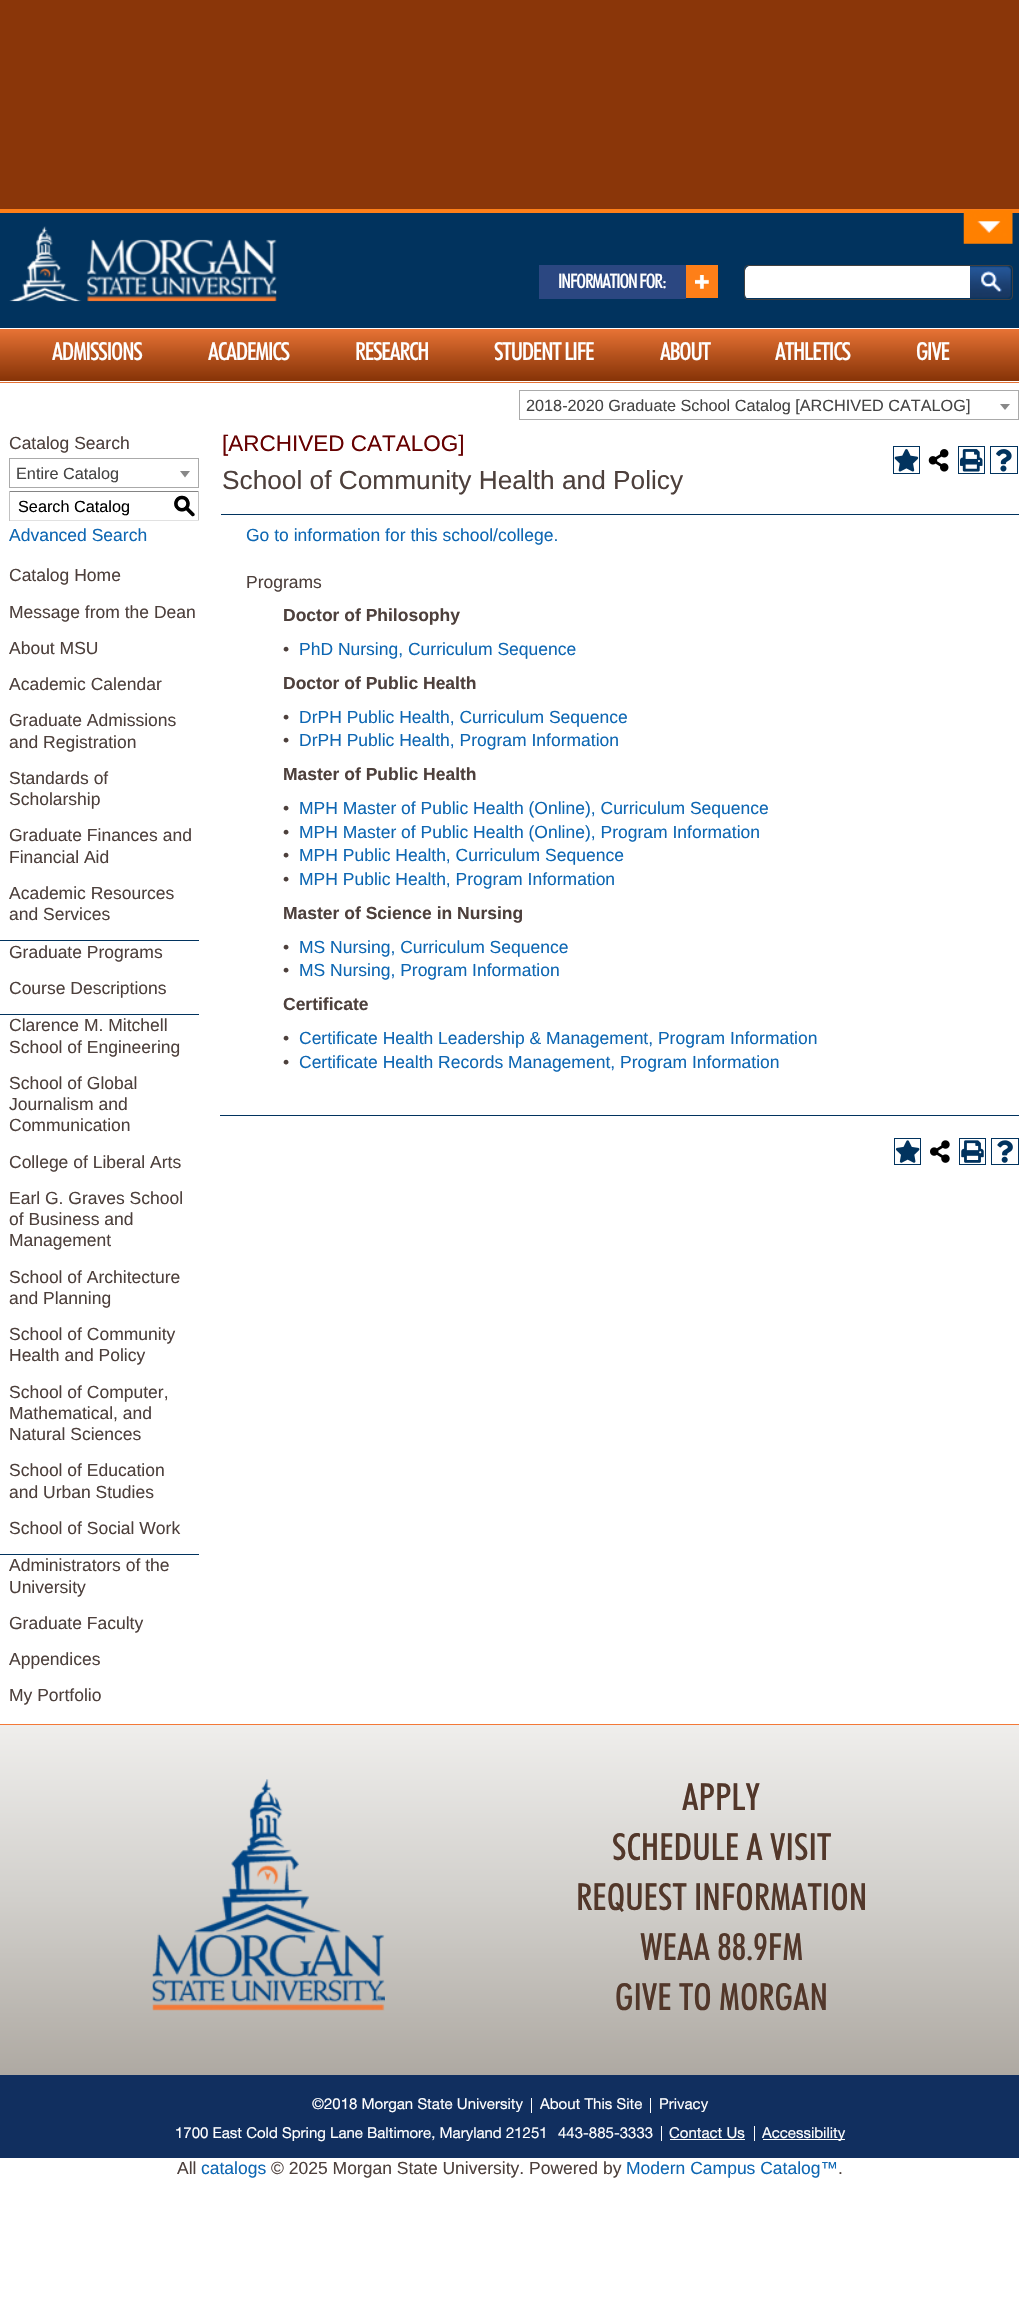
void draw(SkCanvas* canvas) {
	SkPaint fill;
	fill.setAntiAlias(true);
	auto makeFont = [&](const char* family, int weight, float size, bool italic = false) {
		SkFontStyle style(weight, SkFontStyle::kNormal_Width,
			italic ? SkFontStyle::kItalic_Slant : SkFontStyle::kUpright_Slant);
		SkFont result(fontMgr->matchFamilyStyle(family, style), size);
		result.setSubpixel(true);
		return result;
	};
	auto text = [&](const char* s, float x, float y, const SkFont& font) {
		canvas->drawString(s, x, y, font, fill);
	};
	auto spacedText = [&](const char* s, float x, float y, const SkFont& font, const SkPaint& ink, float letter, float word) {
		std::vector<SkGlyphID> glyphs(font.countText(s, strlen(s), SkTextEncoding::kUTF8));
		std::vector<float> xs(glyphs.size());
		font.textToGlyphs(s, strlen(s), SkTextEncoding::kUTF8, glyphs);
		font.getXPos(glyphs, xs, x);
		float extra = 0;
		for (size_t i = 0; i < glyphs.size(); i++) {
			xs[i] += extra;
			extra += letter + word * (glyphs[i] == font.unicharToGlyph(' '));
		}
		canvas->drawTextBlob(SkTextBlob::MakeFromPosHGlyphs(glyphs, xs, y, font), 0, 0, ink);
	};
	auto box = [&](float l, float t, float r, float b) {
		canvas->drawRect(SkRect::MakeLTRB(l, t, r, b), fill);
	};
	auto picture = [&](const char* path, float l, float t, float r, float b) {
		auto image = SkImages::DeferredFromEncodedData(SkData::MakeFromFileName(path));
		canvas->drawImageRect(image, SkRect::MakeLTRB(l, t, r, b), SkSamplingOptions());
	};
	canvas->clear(0xFFFFFFFF);
	fill.setColor(0xFF8A3609);
	box(0, 0, 1019, 209);
	fill.setColor(0xFFFE7F18);
	box(0, 209, 1019, 213);
	fill.setColor(0xFF01335E);
	box(0, 213, 1019, 328);
	picture("image0.png", 963, 210, 1013, 244);
	picture("image1.png", 9, 226, 277, 302);
	fill.setColor(0xFF2B4781);
	box(539, 265, 686, 299);
	fill.setColor(0xFFFE7F18);
	box(686, 265, 718, 298);
	picture("image2.png", 695, 275, 709, 289);
	fill.setStyle(SkPaint::kStroke_Style);
	fill.setStrokeWidth(1);
	fill.setColor(0xFF414040);
	canvas->drawRoundRect(SkRect::MakeLTRB(744.5f, 265.5f, 1012.5f, 299.5f), 3.5f, 3.5f, fill);
	canvas->save();
	canvas->clipPath(SkPathBuilder().moveTo(750, 266).lineTo(1011, 266).lineTo(1011, 299).lineTo(750, 299).cubicTo(747, 299, 745, 297, 745, 294).lineTo(745, 271).cubicTo(745, 268, 747, 266, 750, 266).close().detach(), true);
	fill.setStyle(SkPaint::kFill_Style);
	fill.setColor(0xFFFFFFFF);
	canvas->drawPath(SkPathBuilder().moveTo(750, 266).lineTo(970, 266).lineTo(970, 298).lineTo(745, 298).lineTo(745, 271).cubicTo(745, 268, 747, 266, 750, 266).close().detach(), fill);
	canvas->restore();
	picture("image3.png", 970, 266, 1011, 299);
	{
		const SkColor colors[] = {0xFFE87335, 0xFFB5521D, 0xFF863307};
		const float stops[] = {0, 0.5f, 1};
		const SkPoint ends[] = {{510, 329}, {510, 381}};
		fill.setShader(SkGradientShader::MakeLinear(ends, colors, stops, 3, SkTileMode::kClamp));
		fill.setAlpha(255);
	}
	box(0, 329, 1019, 381);
	{
		const SkColor colors[] = {0xFFE87335, 0xFFB5521D, 0xFF863307};
		const float stops[] = {0, 0.5f, 1};
		const SkPoint ends[] = {{510, 381}, {510, 434}};
		fill.setShader(SkGradientShader::MakeLinear(ends, colors, stops, 3, SkTileMode::kClamp));
		fill.setAlpha(255);
	}
	box(0, 382, 1019, 383);
	fill.setStyle(SkPaint::kStroke_Style);
	fill.setShader(nullptr);
	fill.setColor(0xFFAAAAAA);
	canvas->drawRect(SkRect::MakeLTRB(519.5f, 390.5f, 1018.5f, 419.5f), fill);
	fill.setStyle(SkPaint::kFill_Style);
	fill.setColor(0xFF888888);
	canvas->drawPath(SkPathBuilder().moveTo(1000, 404).lineTo(1010, 404).lineTo(1005, 410).close().detach(), fill);
	fill.setStyle(SkPaint::kStroke_Style);
	fill.setColor(0xFFAAAAAA);
	canvas->drawRect(SkRect::MakeLTRB(9.5f, 458.5f, 198.5f, 487.5f), fill);
	fill.setStyle(SkPaint::kFill_Style);
	fill.setColor(0xFF888888);
	canvas->drawPath(SkPathBuilder().moveTo(180, 471).lineTo(190, 471).lineTo(185, 477.5f).close().detach(), fill);
	fill.setColor(0xFF848484);
	box(9, 491, 199, 492);
	fill.setColor(0xFFC1C1C1);
	box(198, 491, 199, 521);
	fill.setColor(0xFFE1E1E1);
	box(9, 520, 199, 521);
	fill.setColor(0xFFC1C1C1);
	box(9, 491, 10, 521);
	fill.setColor(0xFF01335E);
	box(0, 940, 199, 941);
	box(0, 1014, 199, 1015);
	box(0, 1554, 199, 1555);
	fill.setStyle(SkPaint::kStroke_Style);
	canvas->drawRect(SkRect::MakeLTRB(893.5f, 446.5f, 919.5f, 473.5f), fill);
	picture("image4.png", 894, 449, 919, 472);
	picture("image5.png", 928, 449, 949, 472);
	canvas->drawRect(SkRect::MakeLTRB(958.5f, 446.5f, 984.5f, 473.5f), fill);
	picture("image6.png", 960, 449, 983, 472);
	canvas->drawRect(SkRect::MakeLTRB(990.5f, 446.5f, 1017.5f, 473.5f), fill);
	picture("image7.png", 996, 449, 1012, 472);
	fill.setStyle(SkPaint::kFill_Style);
	box(221, 514, 1019, 515);
	box(220, 1115, 1019, 1116);
	fill.setStyle(SkPaint::kStroke_Style);
	canvas->drawRect(SkRect::MakeLTRB(894.5f, 1138.5f, 920.5f, 1164.5f), fill);
	picture("image8.png", 895, 1140, 920, 1163);
	picture("image9.png", 930, 1140, 950, 1163);
	canvas->drawRect(SkRect::MakeLTRB(959.5f, 1138.5f, 985.5f, 1164.5f), fill);
	picture("image10.png", 961, 1140, 984, 1163);
	canvas->drawRect(SkRect::MakeLTRB(991.5f, 1138.5f, 1018.5f, 1164.5f), fill);
	picture("image11.png", 997, 1140, 1013, 1163);
	fill.setStyle(SkPaint::kFill_Style);
	{
		const SkColor colors[] = {0xFFEFEEEC, 0xFFD1CFCB, 0xFFAEA9A2};
		const float stops[] = {0, 0.5f, 1};
		const SkPoint ends[] = {{510, 1725}, {510, 2075}};
		fill.setShader(SkGradientShader::MakeLinear(ends, colors, stops, 3, SkTileMode::kClamp));
		fill.setAlpha(255);
	}
	box(0, 1725, 1019, 2075);
	fill.setShader(nullptr);
	fill.setColor(0xFFF47937);
	box(0, 1724, 1019, 1725);
	picture("image12.png", 152, 1779, 385, 2011);
	fill.setColor(0xFF112F5F);
	box(0, 2075, 1019, 2158);
	fill.setColor(0xFFFFFFFF);
	box(531, 2098, 532, 2113);
	box(650, 2098, 651, 2113);
	box(661, 2126, 662, 2141);
	box(670, 2139, 745, 2140);
	box(754, 2126, 755, 2141);
	box(763, 2139, 845, 2140);
	auto font1 = makeFont("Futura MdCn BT", 500, 20);
	spacedText("INFORMATION FOR:", 558, 288, font1, fill, -1.25f, 0);
	auto font2 = makeFont("Futura MdCn BT", 500, 25);
	spacedText("ADMISSIONS", 52, 360, font2, fill, -1.25f, 0);
	spacedText("ACADEMICS", 208, 360, font2, fill, -1.25f, 0);
	spacedText("RESEARCH", 355, 360, font2, fill, -1.25f, 0);
	spacedText("STUDENT LIFE", 494, 360, font2, fill, -1.25f, 0);
	spacedText("ABOUT", 660, 360, font2, fill, -1.25f, 0);
	spacedText("ATHLETICS", 775, 360, font2, fill, -1.25f, 0);
	spacedText("GIVE", 916, 360, font2, fill, -1.25f, 0);
	auto font3 = makeFont("Liberation Sans", 400, 16.25f);
	fill.setColor(0xFF444444);
	text("2018-2020 Graduate School Catalog [ARCHIVED CATALOG]", 526, 411, font3);
	auto font4 = makeFont("Liberation Sans", 400, 17.5f);
	fill.setColor(0xFF4D403C);
	text("Catalog Search", 9, 449, font4);
	fill.setColor(0xFF444444);
	text("Entire Catalog", 16, 479, font3);
	fill.setColor(0xFF000000);
	text("Search Catalog", 18, 512, font3);
	auto font5 = makeFont("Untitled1", 500, 22.5f);
	text("S", 173, 513, font5);
	fill.setColor(0xFF0E67B3);
	text("Advanced Search", 9, 541, font4);
	fill.setColor(0xFF4D403C);
	text("Catalog Home", 9, 581, font4);
	text("Message from the Dean", 9, 618, font4);
	text("About MSU", 9, 654, font4);
	text("Academic Calendar", 9, 690, font4);
	text("Graduate Admissions", 9, 726, font4);
	text("and Registration", 9, 748, font4);
	text("Standards of", 9, 784, font4);
	text("Scholarship", 9, 805, font4);
	text("Graduate Finances and", 9, 841, font4);
	text("Financial Aid", 9, 863, font4);
	text("Academic Resources", 9, 899, font4);
	text("and Services", 9, 920, font4);
	text("Graduate Programs", 9, 958, font4);
	text("Course Descriptions", 9, 994, font4);
	text("Clarence M. Mitchell", 9, 1031, font4);
	text("School of Engineering", 9, 1053, font4);
	text("School of Global", 9, 1089, font4);
	text("Journalism and", 9, 1110, font4);
	text("Communication", 9, 1131, font4);
	text("College of Liberal Arts", 9, 1168, font4);
	text("Earl G. Graves School", 9, 1204, font4);
	text("of Business and", 9, 1225, font4);
	text("Management", 9, 1246, font4);
	text("School of Architecture", 9, 1283, font4);
	text("and Planning", 9, 1304, font4);
	text("School of Community", 9, 1340, font4);
	text("Health and Policy", 9, 1361, font4);
	text("School of Computer,", 9, 1398, font4);
	text("Mathematical, and", 9, 1419, font4);
	text("Natural Sciences", 9, 1440, font4);
	text("School of Education", 9, 1476, font4);
	text("and Urban Studies", 9, 1498, font4);
	text("School of Social Work", 9, 1534, font4);
	text("Administrators of the", 9, 1571, font4);
	text("University", 9, 1593, font4);
	text("Graduate Faculty", 9, 1629, font4);
	text("Appendices", 9, 1665, font4);
	text("My Portfolio", 9, 1701, font4);
	auto font6 = makeFont("Liberation Sans", 400, 22.5f);
	fill.setColor(0xFF660000);
	text("[ARCHIVED CATALOG]", 222, 451, font6);
	auto font7 = makeFont("Liberation Sans", 400, 26.25f);
	fill.setColor(0xFF4D403C);
	text("School of Community Health and Policy", 222, 489, font7);
	fill.setColor(0xFF0E67B3);
	text("Go to information for this school/college.", 246, 541, font4);
	fill.setColor(0xFF4D403C);
	text("Programs", 246, 588, font4);
	auto font8 = makeFont("Liberation Sans", 700, 17.5f);
	text("Doctor of Philosophy", 283, 621, font8);
	text("•", 283, 655, font4);
	fill.setColor(0xFF0E67B3);
	text("PhD Nursing, Curriculum Sequence", 299, 655, font4);
	fill.setColor(0xFF4D403C);
	text("Doctor of Public Health", 283, 689, font8);
	text("•", 283, 723, font4);
	fill.setColor(0xFF0E67B3);
	text("DrPH Public Health, Curriculum Sequence", 299, 723, font4);
	fill.setColor(0xFF4D403C);
	text("•", 283, 746, font4);
	fill.setColor(0xFF0E67B3);
	text("DrPH Public Health, Program Information", 299, 746, font4);
	fill.setColor(0xFF4D403C);
	text("Master of Public Health", 283, 780, font8);
	text("•", 283, 814, font4);
	fill.setColor(0xFF0E67B3);
	text("MPH Master of Public Health (Online), Curriculum Sequence", 299, 814, font4);
	fill.setColor(0xFF4D403C);
	text("•", 283, 838, font4);
	fill.setColor(0xFF0E67B3);
	text("MPH Master of Public Health (Online), Program Information", 299, 838, font4);
	fill.setColor(0xFF4D403C);
	text("•", 283, 861, font4);
	fill.setColor(0xFF0E67B3);
	text("MPH Public Health, Curriculum Sequence", 299, 861, font4);
	fill.setColor(0xFF4D403C);
	text("•", 283, 885, font4);
	fill.setColor(0xFF0E67B3);
	text("MPH Public Health, Program Information", 299, 885, font4);
	fill.setColor(0xFF4D403C);
	text("Master of Science in Nursing", 283, 919, font8);
	text("•", 283, 953, font4);
	fill.setColor(0xFF0E67B3);
	text("MS Nursing, Curriculum Sequence", 299, 953, font4);
	fill.setColor(0xFF4D403C);
	text("•", 283, 976, font4);
	fill.setColor(0xFF0E67B3);
	text("MS Nursing, Program Information", 299, 976, font4);
	fill.setColor(0xFF4D403C);
	text("Certificate", 283, 1010, font8);
	text("•", 283, 1044, font4);
	fill.setColor(0xFF0E67B3);
	text("Certificate Health Leadership & Management, Program Information", 299, 1044, font4);
	fill.setColor(0xFF4D403C);
	text("•", 283, 1068, font4);
	fill.setColor(0xFF0E67B3);
	text("Certificate Health Records Management, Program Information", 299, 1068, font4);
	auto font9 = makeFont("Futura MdCn BT", 500, 37.5f);
	fill.setColor(0xFF52372A);
	text("APPLY", 682, 1810, font9);
	text("SCHEDULE A VISIT", 612, 1860, font9);
	text("REQUEST INFORMATION", 576, 1910, font9);
	text("WEAA 88.9FM", 640, 1960, font9);
	text("GIVE TO MORGAN", 615, 2010, font9);
	auto font10 = makeFont("Helvetica Neue", 400, 15);
	fill.setColor(0xFFFFFFFF);
	text("©2018 Morgan State University", 312, 2109, font10);
	text("About This Site", 540, 2109, font10);
	text("Privacy", 659, 2109, font10);
	text("1700 East Cold Spring Lane Baltimore, Maryland 21251", 175, 2138, font10);
	text("443-885-3333", 558, 2138, font10);
	text("Contact Us", 669, 2138, font10);
	text("Accessibility", 762, 2138, font10);
	fill.setColor(0xFF4D403C);
	text("All", 177, 2174, font4);
	fill.setColor(0xFF0E67B3);
	text("catalogs", 201, 2174, font4);
	fill.setColor(0xFF4D403C);
	text("© 2025 Morgan State University. Powered by", 271, 2174, font4);
	fill.setColor(0xFF0E67B3);
	text("Modern Campus Catalog™", 626, 2174, font4);
	fill.setColor(0xFF4D403C);
	text(".", 838, 2174, font4);
}
